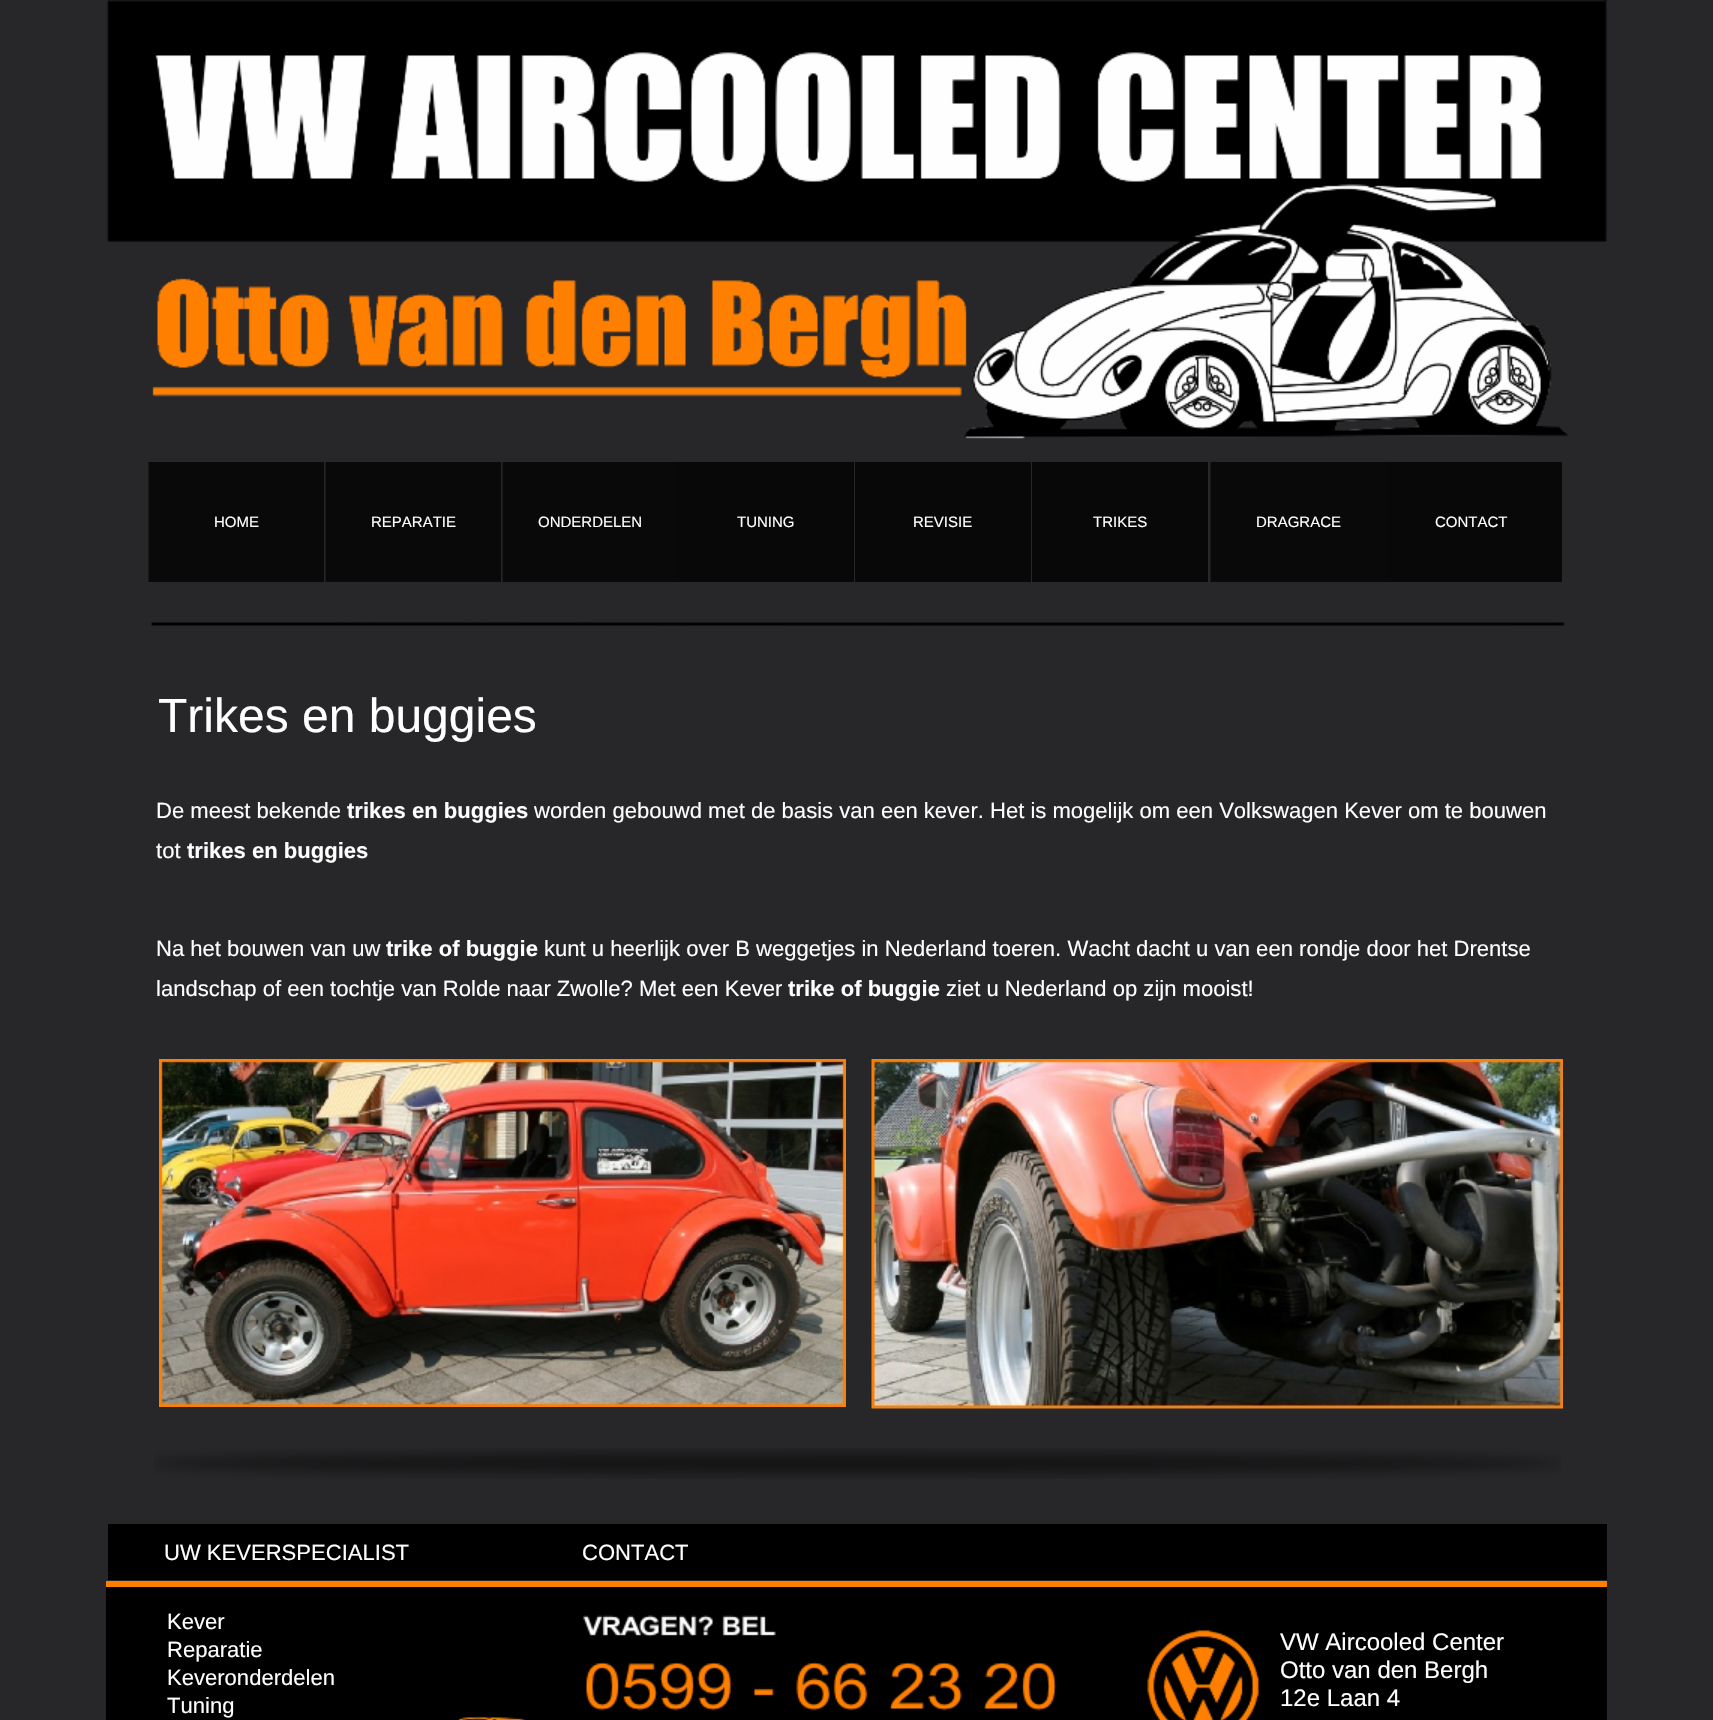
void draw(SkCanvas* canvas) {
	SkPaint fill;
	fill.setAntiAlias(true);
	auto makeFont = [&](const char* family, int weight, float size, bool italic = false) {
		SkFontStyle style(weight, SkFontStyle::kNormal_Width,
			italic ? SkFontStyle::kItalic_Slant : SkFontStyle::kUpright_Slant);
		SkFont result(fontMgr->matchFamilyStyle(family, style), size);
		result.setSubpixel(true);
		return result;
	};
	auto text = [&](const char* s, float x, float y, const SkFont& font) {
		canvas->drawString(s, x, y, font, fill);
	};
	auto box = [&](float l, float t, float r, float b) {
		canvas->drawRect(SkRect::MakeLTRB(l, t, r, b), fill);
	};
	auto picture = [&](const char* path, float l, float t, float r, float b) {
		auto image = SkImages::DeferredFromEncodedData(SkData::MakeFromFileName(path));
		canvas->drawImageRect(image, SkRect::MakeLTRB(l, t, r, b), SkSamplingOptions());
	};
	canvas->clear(0xFF272628);
	picture("image0.png", 106, 0, 1607, 439);
	picture("image1.png", 148, 462, 324, 582);
	picture("image2.png", 325, 462, 501, 582);
	picture("image1.png", 502, 462, 678, 582);
	fill.setColor(0xFF090809);
	box(678, 462, 854, 582);
	box(855, 462, 1031, 582);
	box(1032, 462, 1208, 582);
	picture("image1.png", 1210, 462, 1386, 582);
	box(1386, 462, 1562, 582);
	picture("image3.png", 151, 622, 1565, 626);
	picture("image4.png", 159, 1059, 846, 1407);
	picture("image5.png", 871, 1059, 1563, 1409);
	picture("image6.png", 154, 1448, 1561, 1479);
	fill.setColor(0xFF000000);
	box(108, 1524, 1607, 1580);
	fill.setColor(0xFFFF8000);
	box(106, 1581, 1607, 1587);
	fill.setColor(0xFF000000);
	box(106, 1587, 1607, 1720);
	picture("image7.png", 583, 1615, 1057, 1711);
	picture("image8.png", 1147, 1630, 1259, 1720);
	picture("image9.png", 457, 1716, 526, 1720);
	auto font1 = makeFont("Liberation Sans", 400, 15);
	fill.setColor(0xFFFFFFFF);
	text("HOME", 214, 527, font1);
	text("REPARATIE", 371, 527, font1);
	text("ONDERDELEN", 538, 527, font1);
	text("TUNING", 737, 527, font1);
	text("REVISIE", 913, 527, font1);
	text("TRIKES", 1093, 527, font1);
	text("DRAGRACE", 1256, 527, font1);
	text("CONTACT", 1435, 527, font1);
	auto font2 = makeFont("Liberation Sans", 400, 48);
	text("Trikes en buggies", 158, 732, font2);
	auto font3 = makeFont("Liberation Sans", 400, 22.05f);
	text("De meest bekende", 156, 818, font3);
	auto font4 = makeFont("Liberation Sans", 700, 22.05f);
	text("trikes en buggies", 347, 818, font4);
	text("worden gebouwd met de basis van een kever. Het is mogelijk om een Volkswagen Kever om te bouwen", 534, 818, font3);
	text("tot", 156, 858, font3);
	text("trikes en buggies", 187, 858, font4);
	text("Na het bouwen van uw", 156, 956, font3);
	text("trike of buggie", 386, 956, font4);
	text("kunt u heerlijk over B weggetjes in Nederland toeren. Wacht dacht u van een rondje door het Drentse", 544, 956, font3);
	text("landschap of een tochtje van Rolde naar Zwolle? Met een Kever", 156, 996, font3);
	text("trike of buggie", 788, 996, font4);
	text("ziet u Nederland op zijn mooist!", 946, 996, font3);
	text("UW KEVERSPECIALIST", 164, 1560, font3);
	text("CONTACT", 582, 1560, font3);
	text("Kever", 167, 1629, font3);
	text("Reparatie", 167, 1657, font3);
	text("Keveronderdelen", 167, 1685, font3);
	text("Tuning", 167, 1713, font3);
	auto font5 = makeFont("Liberation Sans", 400, 24);
	text("VW Aircooled Center", 1280, 1650, font5);
	text("Otto van den Bergh", 1280, 1678, font5);
	text("12e Laan 4", 1280, 1706, font5);
}
